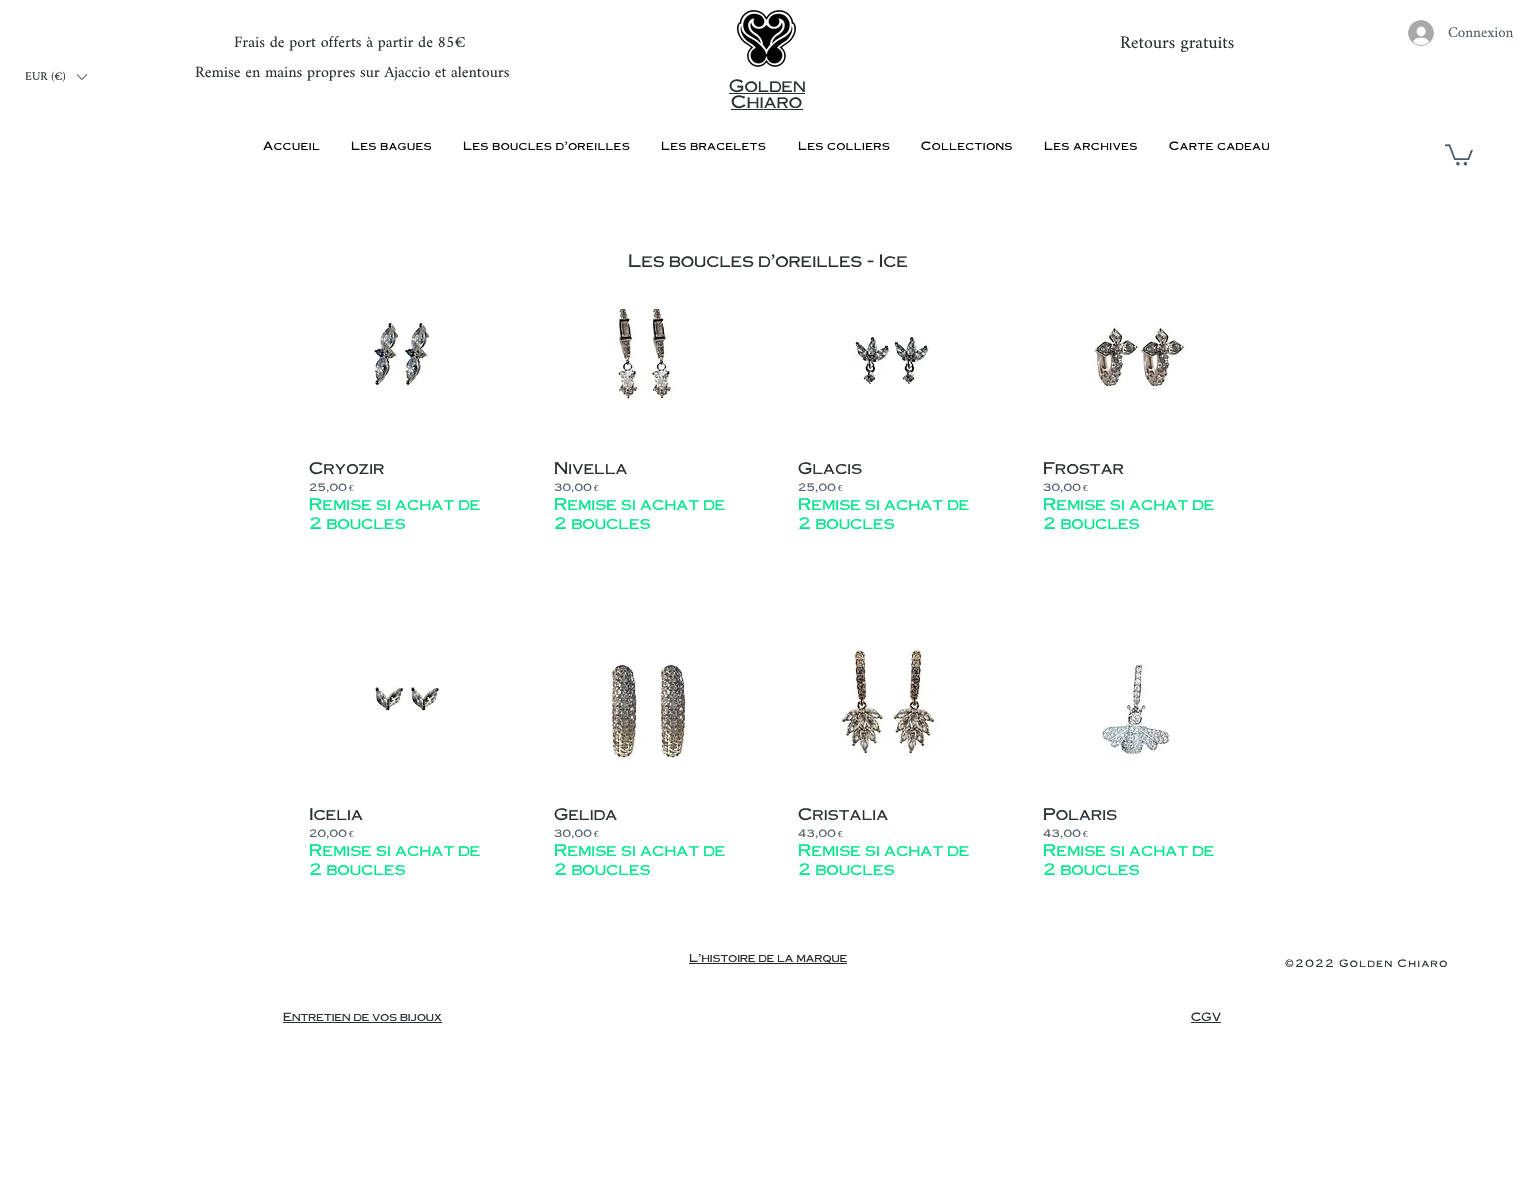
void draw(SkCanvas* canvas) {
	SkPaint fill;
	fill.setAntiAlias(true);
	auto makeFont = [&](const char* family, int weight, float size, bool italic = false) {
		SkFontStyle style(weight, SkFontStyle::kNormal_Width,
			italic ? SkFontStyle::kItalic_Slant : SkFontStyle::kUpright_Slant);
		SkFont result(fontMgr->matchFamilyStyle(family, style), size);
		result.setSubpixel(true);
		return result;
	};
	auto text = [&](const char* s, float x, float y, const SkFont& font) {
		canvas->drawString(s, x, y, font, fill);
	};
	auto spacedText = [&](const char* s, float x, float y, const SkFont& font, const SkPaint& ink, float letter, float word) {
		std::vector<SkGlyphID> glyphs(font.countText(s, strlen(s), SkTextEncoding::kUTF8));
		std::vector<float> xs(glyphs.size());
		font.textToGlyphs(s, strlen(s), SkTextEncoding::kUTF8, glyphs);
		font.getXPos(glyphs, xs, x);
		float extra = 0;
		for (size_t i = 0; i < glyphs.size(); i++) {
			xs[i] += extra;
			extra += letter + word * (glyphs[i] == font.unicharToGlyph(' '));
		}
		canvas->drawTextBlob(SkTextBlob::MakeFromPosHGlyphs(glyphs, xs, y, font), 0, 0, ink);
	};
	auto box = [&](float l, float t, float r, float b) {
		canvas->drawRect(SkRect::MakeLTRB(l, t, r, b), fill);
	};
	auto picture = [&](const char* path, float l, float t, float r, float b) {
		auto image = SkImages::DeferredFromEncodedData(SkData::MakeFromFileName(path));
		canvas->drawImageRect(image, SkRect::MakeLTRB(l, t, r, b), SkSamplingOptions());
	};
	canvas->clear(0xFFFFFFFF);
	picture("image0.png", 736, 10, 797, 67);
	picture("image1.png", 76, 74, 88, 80);
	picture("image2.png", 1408, 20, 1434, 46);
	picture("image3.png", 1445, 144, 1473, 166);
	fill.setColor(0xFF292F33);
	box(729, 93, 805, 94);
	box(731, 109, 803, 110);
	picture("image4.png", 373, 321, 430, 385);
	picture("image5.png", 617, 307, 673, 401);
	picture("image6.png", 854, 337, 930, 385);
	picture("image7.png", 1094, 325, 1186, 389);
	picture("image8.png", 373, 687, 441, 711);
	picture("image9.png", 609, 663, 687, 759);
	picture("image10.png", 842, 648, 938, 755);
	picture("image11.png", 1102, 663, 1170, 755);
	fill.setColor(0xFF282626);
	box(689, 963, 847, 964);
	fill.setColor(0xFF292F33);
	box(283, 1022, 442, 1023);
	box(1191, 1022, 1221, 1023);
	auto font1 = makeFont("Amiri", 400, 16);
	text("Frais de port offerts à partir de 85€", 234, 47, font1);
	auto font2 = makeFont("Amiri", 400, 12);
	text("EUR (€)", 25, 80, font2);
	text("Remise en mains propres sur Ajaccio et alentours", 195, 77, font1);
	auto font3 = makeFont("Amiri", 400, 15);
	fill.setColor(0xFF515E65);
	text("Connexion", 1448, 37, font3);
	auto font4 = makeFont("Amiri", 400, 18);
	fill.setColor(0xFF292F33);
	text("Retours gratuits", 1120, 48, font4);
	auto font5 = makeFont("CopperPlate", 400, 15);
	text("Golden", 729, 92, font5);
	text("Chiaro", 731, 108, font5);
	auto font6 = makeFont("CopperPlate", 400, 10);
	fill.setColor(0xFF000000);
	spacedText("Accueil", 263, 150, font6, fill, 0.5f, 0);
	spacedText("Les bagues", 351, 150, font6, fill, 0.5f, 0);
	spacedText("Les boucles d'oreilles", 463, 150, font6, fill, 0.5f, 0);
	spacedText("Les bracelets", 661, 150, font6, fill, 0.5f, 0);
	spacedText("Les colliers", 798, 150, font6, fill, 0.5f, 0);
	spacedText("Collections", 921, 150, font6, fill, 0.5f, 0);
	spacedText("Les archives", 1044, 150, font6, fill, 0.5f, 0);
	spacedText("Carte cadeau", 1169, 150, font6, fill, 0.5f, 0);
	fill.setColor(0xFF292F33);
	text("Les boucles d'oreilles - Ice", 628, 267, font5);
	auto font7 = makeFont("CopperPlate", 400, 14);
	text("Cryozir", 309, 474, font7);
	auto font8 = makeFont("CopperPlate", 400, 9);
	fill.setColor(0xFF515E65);
	text("25,00", 309, 491, font8);
	auto font9 = makeFont("Liberation Serif", 400, 9);
	text("€", 349, 491, font9);
	fill.setColor(0xFF00E689);
	text("Remise si achat de", 309, 510, font7);
	text("2 boucles", 309, 529, font7);
	fill.setColor(0xFF292F33);
	text("Nivella", 554, 474, font7);
	fill.setColor(0xFF515E65);
	text("30,00", 554, 491, font8);
	text("€", 594, 491, font9);
	fill.setColor(0xFF00E689);
	text("Remise si achat de", 554, 510, font7);
	text("2 boucles", 554, 529, font7);
	fill.setColor(0xFF292F33);
	text("Glacis", 798, 474, font7);
	fill.setColor(0xFF515E65);
	text("25,00", 798, 491, font8);
	text("€", 838, 491, font9);
	fill.setColor(0xFF00E689);
	text("Remise si achat de", 798, 510, font7);
	text("2 boucles", 798, 529, font7);
	fill.setColor(0xFF292F33);
	text("Frostar", 1043, 474, font7);
	fill.setColor(0xFF515E65);
	text("30,00", 1043, 491, font8);
	text("€", 1083, 491, font9);
	fill.setColor(0xFF00E689);
	text("Remise si achat de", 1043, 510, font7);
	text("2 boucles", 1043, 529, font7);
	fill.setColor(0xFF292F33);
	text("Icelia", 309, 820, font7);
	fill.setColor(0xFF515E65);
	text("20,00", 309, 837, font8);
	text("€", 349, 837, font9);
	fill.setColor(0xFF00E689);
	text("Remise si achat de", 309, 856, font7);
	text("2 boucles", 309, 875, font7);
	fill.setColor(0xFF292F33);
	text("Gelida", 554, 820, font7);
	fill.setColor(0xFF515E65);
	text("30,00", 554, 837, font8);
	text("€", 594, 837, font9);
	fill.setColor(0xFF00E689);
	text("Remise si achat de", 554, 856, font7);
	text("2 boucles", 554, 875, font7);
	fill.setColor(0xFF292F33);
	text("Cristalia", 798, 820, font7);
	fill.setColor(0xFF515E65);
	text("43,00", 798, 837, font8);
	text("€", 838, 837, font9);
	fill.setColor(0xFF00E689);
	text("Remise si achat de", 798, 856, font7);
	text("2 boucles", 798, 875, font7);
	fill.setColor(0xFF292F33);
	text("Polaris", 1043, 820, font7);
	fill.setColor(0xFF515E65);
	text("43,00", 1043, 837, font8);
	text("€", 1083, 837, font9);
	fill.setColor(0xFF00E689);
	text("Remise si achat de", 1043, 856, font7);
	text("2 boucles", 1043, 875, font7);
	canvas->save();
	canvas->clipRect(SkRect::MakeLTRB(689, 954, 847, 964));
	fill.setColor(0xFF282626);
	text("L'histoire de la marque", 689, 962, font6);
	canvas->restore();
	fill.setColor(0xFF292F33);
	spacedText("©2022 Golden Chiaro", 1285, 967, font8, fill, 1.4f, 0);
	text("Entretien de vos bijoux", 283, 1021, font6);
	text("CGV", 1191, 1021, font6);
}
